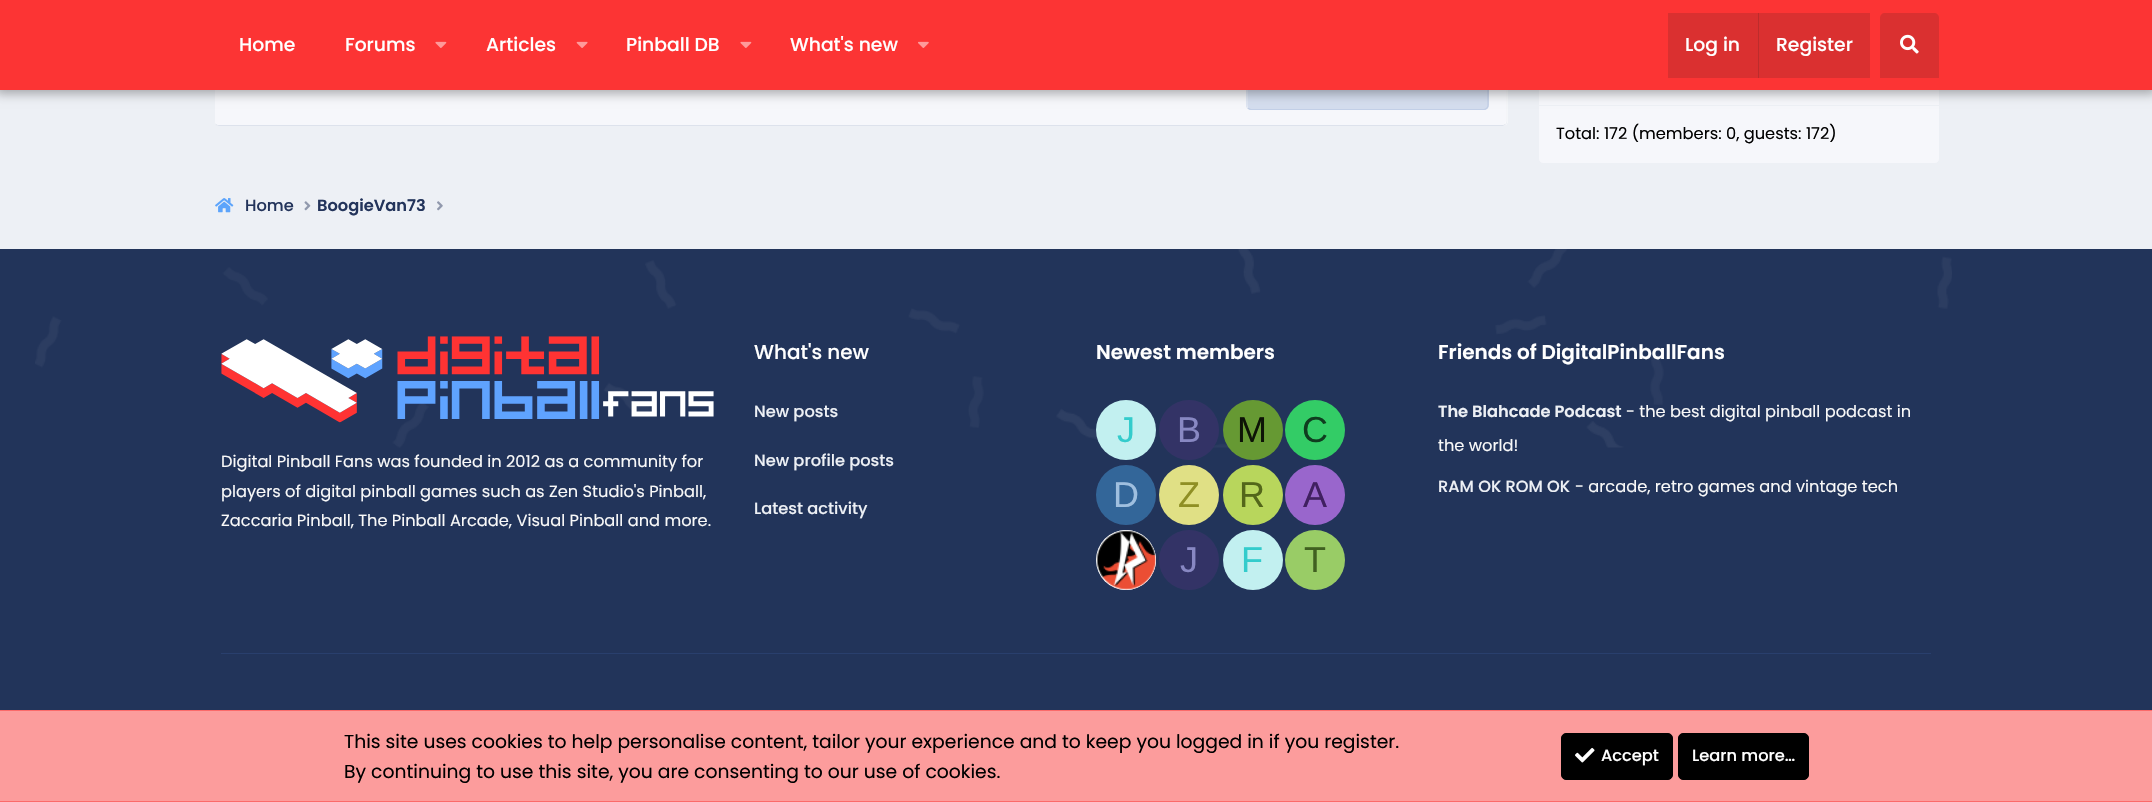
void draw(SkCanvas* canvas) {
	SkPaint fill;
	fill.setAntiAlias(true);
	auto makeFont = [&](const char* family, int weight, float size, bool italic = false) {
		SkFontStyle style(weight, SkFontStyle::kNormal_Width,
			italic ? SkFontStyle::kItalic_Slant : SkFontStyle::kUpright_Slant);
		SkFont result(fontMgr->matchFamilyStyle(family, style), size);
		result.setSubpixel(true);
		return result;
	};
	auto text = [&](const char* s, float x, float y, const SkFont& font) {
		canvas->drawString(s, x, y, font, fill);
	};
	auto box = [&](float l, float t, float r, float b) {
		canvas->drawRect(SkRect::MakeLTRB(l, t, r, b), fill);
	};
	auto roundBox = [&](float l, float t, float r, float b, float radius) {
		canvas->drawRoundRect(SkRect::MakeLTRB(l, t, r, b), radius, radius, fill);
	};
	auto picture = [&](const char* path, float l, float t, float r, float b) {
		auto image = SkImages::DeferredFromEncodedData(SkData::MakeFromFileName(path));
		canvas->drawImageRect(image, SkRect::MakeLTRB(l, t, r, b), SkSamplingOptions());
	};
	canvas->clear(0xFFEDF0F5);
	fill.setColor(0xFFFFFFFF);
	roundBox(214, -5, 1508, 126, 5);
	fill.setStyle(SkPaint::kStroke_Style);
	fill.setStrokeWidth(1.2f);
	fill.setColor(0xFFDDE2EC);
	canvas->drawPath(SkPathBuilder().moveTo(1505.5f, 124.5f).lineTo(1502.5f, 125.5f).lineTo(219, 125.5f).lineTo(215.5f, 124.5f).detach(), fill);
	fill.setColor(0xFFEDF0F5);
	canvas->drawPath(SkPathBuilder().moveTo(215.5f, 124.5f).cubicTo(215, 123.5f, 214.5f, 122.5f, 214.5f, 121).lineTo(214.5f, -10).cubicTo(214.5f, -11, 215, -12.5f, 215.5f, -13).cubicTo(216.5f, -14, 217.5f, -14.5f, 219, -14.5f).lineTo(1502.5f, -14.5f).cubicTo(1503.5f, -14.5f, 1505, -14, 1505.5f, -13).cubicTo(1506.5f, -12.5f, 1507, -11, 1507, -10).lineTo(1507, 121).cubicTo(1507, 122.5f, 1506.5f, 123.5f, 1505.5f, 124.5f).detach(), fill);
	fill.setStyle(SkPaint::kFill_Style);
	fill.setColor(0xFFF6F7FB);
	canvas->drawPath(SkPathBuilder().moveTo(215, 46).lineTo(1506, 46).lineTo(1506, 121).cubicTo(1506, 123, 1504, 125, 1502, 125).lineTo(219, 125).cubicTo(217, 125, 215, 123, 215, 121).close().detach(), fill);
	fill.setColor(0xFFD4DDEE);
	roundBox(1246, 63, 1489, 110, 5);
	fill.setStyle(SkPaint::kStroke_Style);
	fill.setColor(0xFFC2CFE7);
	canvas->drawPath(SkPathBuilder().moveTo(1487, 64.5f).cubicTo(1487.5f, 65, 1488, 66.5f, 1488, 67.5f).lineTo(1488, 105).cubicTo(1488, 106, 1487.5f, 107.5f, 1487, 108).cubicTo(1486, 109, 1485, 109.5f, 1484, 109.5f).lineTo(1251, 109.5f).cubicTo(1250, 109.5f, 1249, 109, 1248, 108).detach(), fill);
	fill.setColor(0xFFE6EBF5);
	canvas->drawPath(SkPathBuilder().moveTo(1248, 108).cubicTo(1247.5f, 107.5f, 1247, 106, 1247, 105).lineTo(1247, 67.5f).cubicTo(1247, 66.5f, 1247.5f, 65, 1248, 64.5f).cubicTo(1249, 63.5f, 1250, 63, 1251, 63).lineTo(1484, 63).cubicTo(1485, 63, 1486, 63.5f, 1487, 64.5f).detach(), fill);
	fill.setStyle(SkPaint::kFill_Style);
	fill.setColor(0xFFF6F7FB);
	roundBox(1539, -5, 1939, 163, 5);
	canvas->drawPath(SkPathBuilder().moveTo(1539, 105).lineTo(1939, 105).lineTo(1939, 159).cubicTo(1939, 161, 1937, 163, 1935, 163).lineTo(1543, 163).cubicTo(1541, 163, 1539, 161, 1539, 159).close().detach(), fill);
	fill.setColor(0xFFEDF0F5);
	box(1539, 105, 1939, 106);
	fill.setColor(0x4D000000);
	fill.setMaskFilter(SkMaskFilter::MakeBlur(kNormal_SkBlurStyle, 5));
	canvas->drawRect(SkRect::MakeLTRB(-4, -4, 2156, 94), fill);
	fill.setMaskFilter(nullptr);
	fill.setColor(0xFFFC3434);
	box(0, 0, 2152, 90);
	picture("image0.png", 435, 41, 447, 48);
	picture("image1.png", 576, 41, 588, 48);
	picture("image0.png", 740, 41, 752, 48);
	picture("image2.png", 918, 41, 929, 48);
	fill.setColor(0xFFDA3030);
	box(1668, 13, 1870, 78);
	fill.setColor(0xFFBD2C2C);
	box(1758, 13, 1759, 78);
	fill.setColor(0xFFDA3030);
	canvas->drawPath(SkPathBuilder().moveTo(1885, 13).lineTo(1934, 13).cubicTo(1937, 13, 1939, 15, 1939, 18).lineTo(1939, 78).lineTo(1880, 78).lineTo(1880, 18).cubicTo(1880, 15, 1882, 13, 1885, 13).close().detach(), fill);
	picture("image3.png", 1900, 34, 1919, 54);
	picture("image4.png", 215, 198, 234, 213);
	picture("image5.png", 304, 201, 311, 211);
	picture("image6.png", 437, 201, 443, 211);
	fill.setColor(0xFF22345A);
	box(0, 249, 2152, 710);
	picture("image7.png", 35, 249, 1952, 448);
	picture("image8.png", 221, 336, 714, 423);
	fill.setColor(0xFFC2F0F0);
	canvas->drawCircle(1126, 430, 30, fill);
	fill.setColor(0xFF333366);
	canvas->drawCircle(1189, 430, 30, fill);
	fill.setColor(0xFF669933);
	canvas->drawCircle(1253, 430, 30, fill);
	fill.setColor(0xFF33CC66);
	canvas->drawCircle(1315, 430, 30, fill);
	fill.setColor(0xFF336699);
	canvas->drawCircle(1126, 495, 30, fill);
	fill.setColor(0xFFE0E085);
	canvas->drawCircle(1189, 495, 30, fill);
	fill.setColor(0xFFB8D65C);
	canvas->drawCircle(1253, 495, 30, fill);
	fill.setColor(0xFF9966CC);
	canvas->drawCircle(1315, 495, 30, fill);
	fill.setColor(0xFFFFFFFF);
	canvas->drawCircle(1126, 560, 30, fill);
	picture("image9.png", 1096, 530, 1156, 590);
	fill.setColor(0xFF333366);
	canvas->drawCircle(1189, 560, 30, fill);
	fill.setColor(0xFFC2F0F0);
	canvas->drawCircle(1253, 560, 30, fill);
	fill.setColor(0xFF99CC66);
	canvas->drawCircle(1315, 560, 30, fill);
	fill.setColor(0xFF293F6D);
	box(221, 653, 1931, 654);
	fill.setColor(0xFFFC9C9C);
	box(0, 711, 2152, 801);
	fill.setColor(0xFFFB6A6A);
	box(0, 710, 2152, 711);
	box(0, 801, 2152, 802);
	fill.setColor(0xFF000000);
	canvas->drawRoundRect(SkRect::MakeLTRB(1561.5f, 733.5f, 1672.5f, 779.5f), 4.5f, 4.5f, fill);
	fill.setStyle(SkPaint::kStroke_Style);
	fill.setStrokeWidth(1);
	canvas->drawRoundRect(SkRect::MakeLTRB(1561.5f, 733.5f, 1672.5f, 779.5f), 4.5f, 4.5f, fill);
	picture("image10.png", 1575, 747, 1595, 763);
	fill.setStyle(SkPaint::kFill_Style);
	canvas->drawRoundRect(SkRect::MakeLTRB(1678.5f, 733.5f, 1808.5f, 779.5f), 4.5f, 4.5f, fill);
	fill.setStyle(SkPaint::kStroke_Style);
	canvas->drawRoundRect(SkRect::MakeLTRB(1678.5f, 733.5f, 1808.5f, 779.5f), 4.5f, 4.5f, fill);
	auto font1 = makeFont("Poppins", 500, 18.75f);
	fill.setStyle(SkPaint::kFill_Style);
	fill.setColor(0xFFFFFFFF);
	text("Home", 239, 51, font1);
	text("Forums", 345, 51, font1);
	text("Articles", 486, 51, font1);
	text("Pinball DB", 626, 51, font1);
	text("What's new", 790, 51, font1);
	text("Log in", 1685, 51, font1);
	text("Register", 1776, 51, font1);
	auto font2 = makeFont("Poppins", 400, 16.25f);
	fill.setColor(0xFF000000);
	text("Total: 172 (members: 0, guests: 172)", 1556, 139, font2);
	auto font3 = makeFont("Poppins", 500, 16.25f);
	fill.setColor(0xFF23345B);
	text("Home", 245, 211, font3);
	auto font4 = makeFont("Poppins", 600, 16.25f);
	text("BoogieVan73", 317, 211, font4);
	fill.setColor(0xFFF9F9F9);
	text("Digital Pinball Fans was founded in 2012 as a community for", 221, 467, font2);
	text("players of digital pinball games such as Zen Studio's Pinball,", 221, 497, font2);
	text("Zaccaria Pinball, The Pinball Arcade, Visual Pinball and more.", 221, 526, font2);
	auto font5 = makeFont("Poppins", 500, 20);
	fill.setColor(0xFFFFFFFF);
	text("What's new", 754, 359, font5);
	fill.setColor(0xFFEDF0F5);
	text("New posts", 754, 417, font3);
	text("New profile posts", 754, 466, font3);
	text("Latest activity", 754, 514, font3);
	auto font6 = makeFont("Poppins", 600, 20);
	fill.setColor(0xFFFFFFFF);
	text("Newest members", 1096, 359, font6);
	auto font7 = makeFont("Liberation Sans", 400, 36);
	fill.setColor(0xFF33CCCC);
	text("J", 1117, 442, font7);
	fill.setColor(0xFF8888C3);
	text("B", 1177, 442, font7);
	fill.setColor(0xFF0D1306);
	text("M", 1237, 442, font7);
	fill.setColor(0xFF0F3D1F);
	text("C", 1302, 442, font7);
	fill.setColor(0xFF9FBFDF);
	text("D", 1113, 507, font7);
	fill.setColor(0xFF8F8F24);
	text("Z", 1178, 507, font7);
	fill.setColor(0xFF53661A);
	text("R", 1239, 507, font7);
	fill.setColor(0xFF402060);
	text("A", 1303, 507, font7);
	fill.setColor(0xFF8888C3);
	text("J", 1180, 572, font7);
	fill.setColor(0xFF33CCCC);
	text("F", 1241, 572, font7);
	fill.setColor(0xFF406020);
	text("T", 1304, 572, font7);
	fill.setColor(0xFFFFFFFF);
	text("Friends of DigitalPinballFans", 1438, 359, font6);
	fill.setColor(0xFFEDF0F5);
	text("The Blahcade Podcast", 1438, 417, font4);
	fill.setColor(0xFFF9F9F9);
	text("- the best digital pinball podcast in", 1626, 417, font2);
	text("the world!", 1438, 451, font2);
	fill.setColor(0xFFEDF0F5);
	text("RAM OK ROM OK", 1438, 492, font3);
	fill.setColor(0xFFF9F9F9);
	text("- arcade, retro games and vintage tech", 1575, 492, font2);
	auto font8 = makeFont("Poppins", 400, 18.75f);
	fill.setColor(0xFF000000);
	text("This site uses cookies to help personalise content, tailor your experience and to keep you logged in if you register.", 344, 748, font8);
	text("By continuing to use this site, you are consenting to our use of cookies.", 344, 778, font8);
	fill.setColor(0xFFFFFFFF);
	text("Accept", 1601, 761, font3);
	text("Learn more…", 1692, 761, font3);
}
